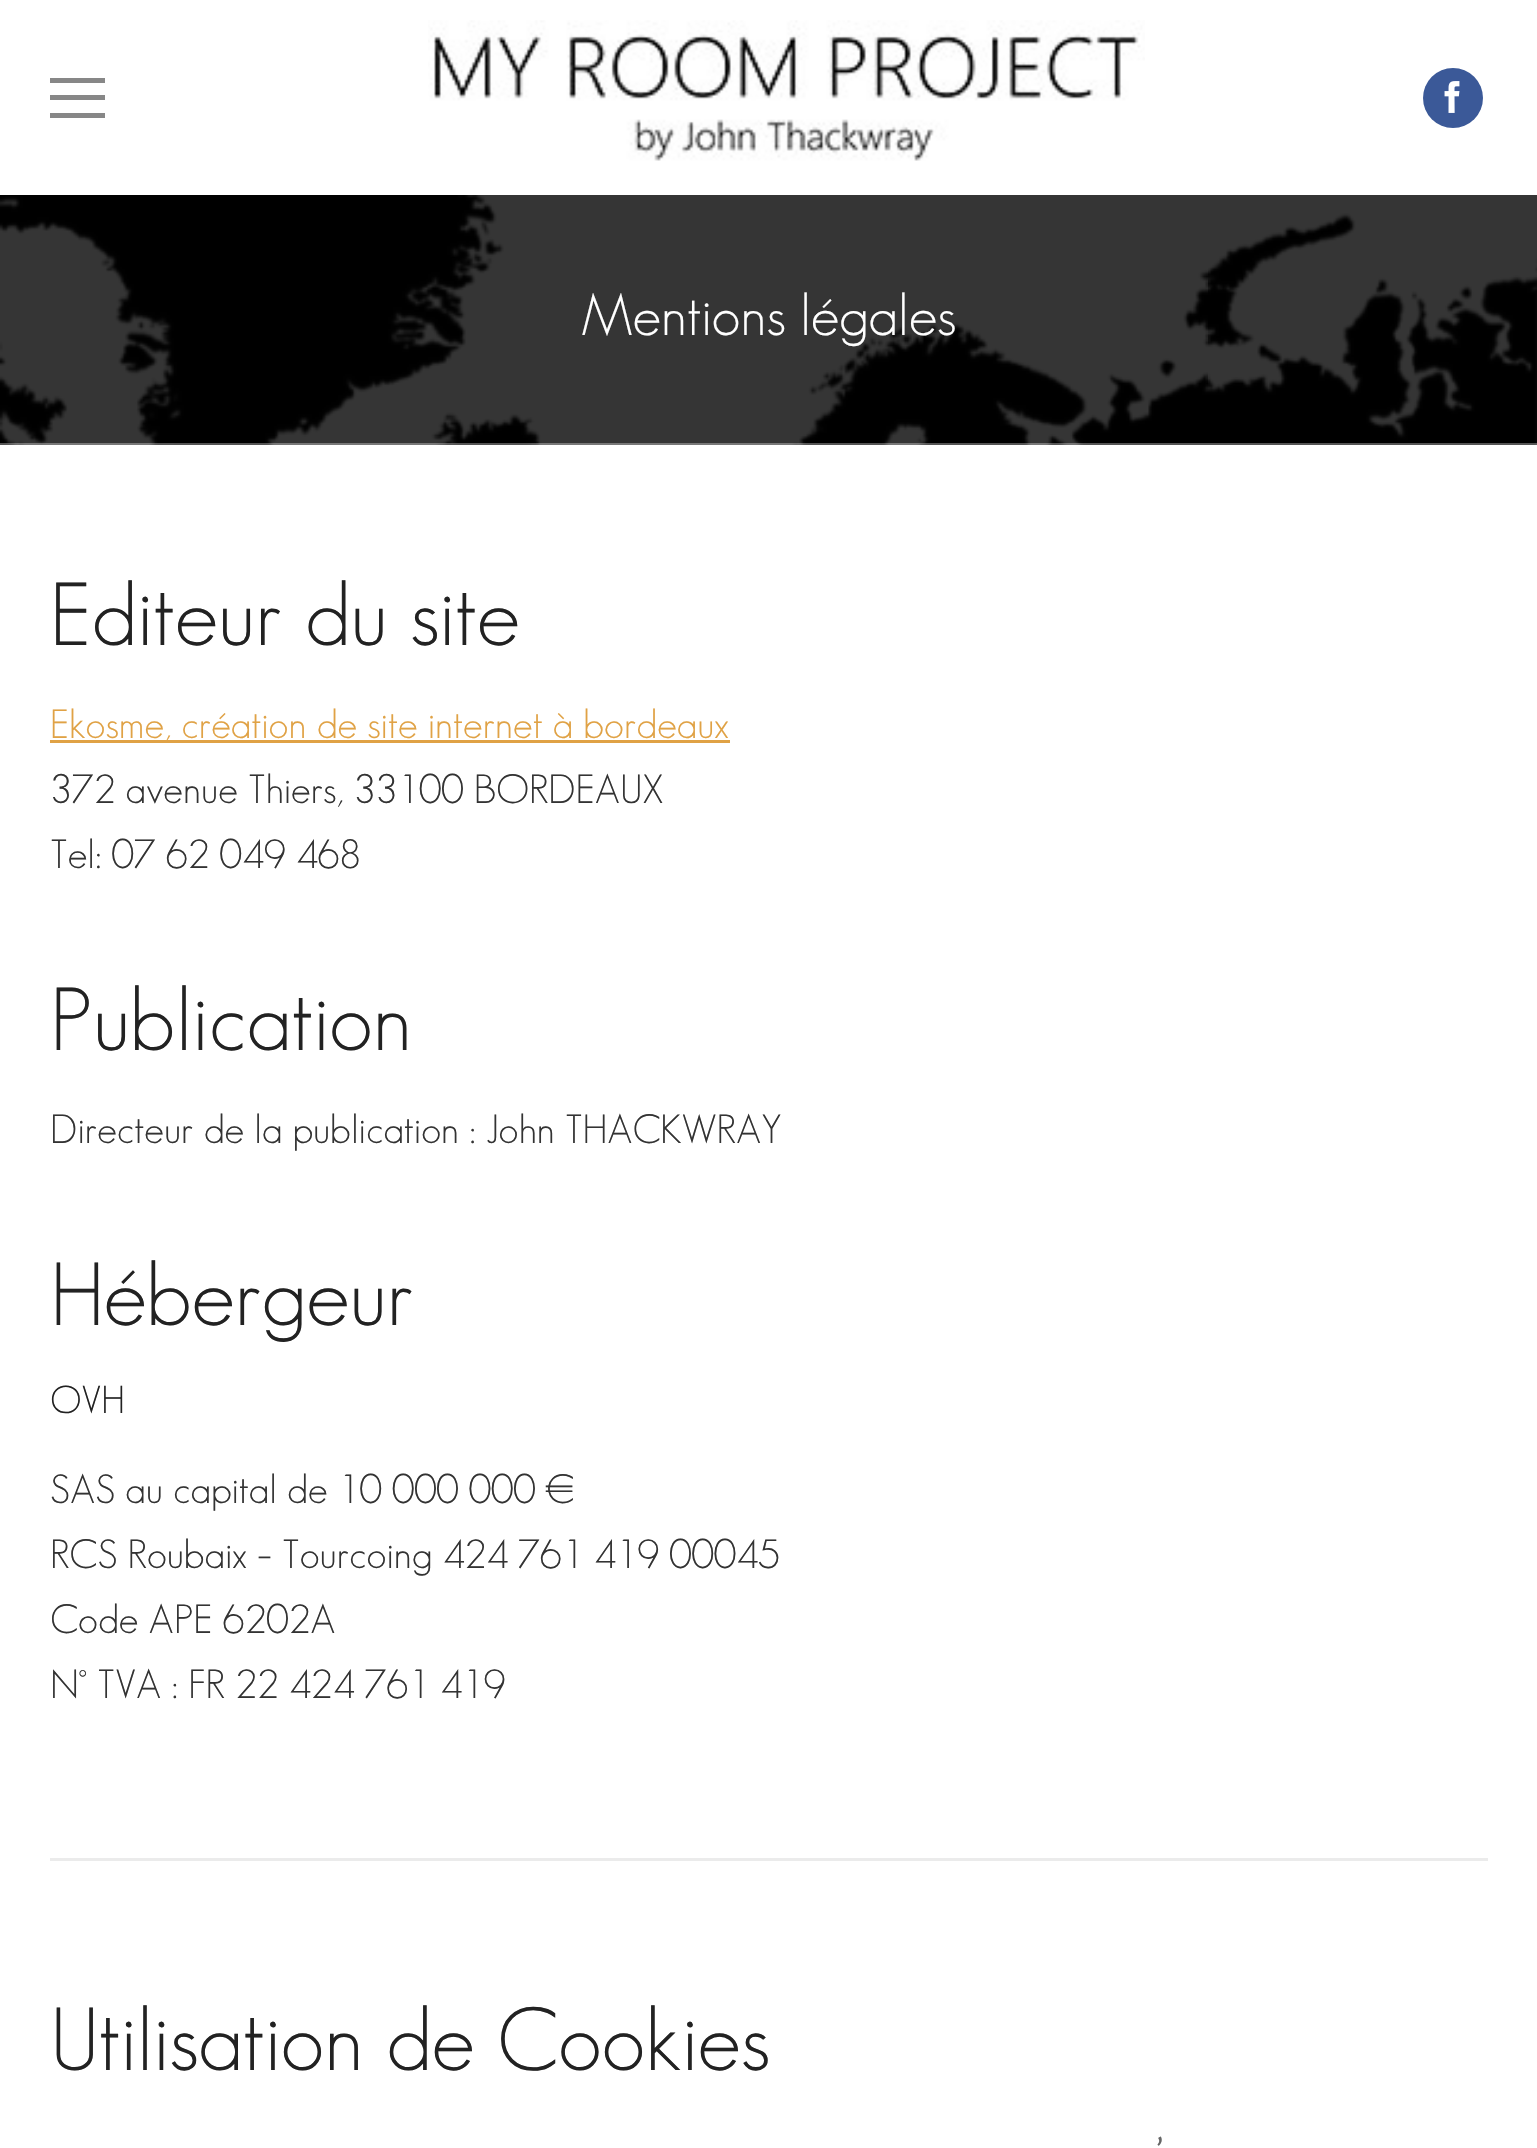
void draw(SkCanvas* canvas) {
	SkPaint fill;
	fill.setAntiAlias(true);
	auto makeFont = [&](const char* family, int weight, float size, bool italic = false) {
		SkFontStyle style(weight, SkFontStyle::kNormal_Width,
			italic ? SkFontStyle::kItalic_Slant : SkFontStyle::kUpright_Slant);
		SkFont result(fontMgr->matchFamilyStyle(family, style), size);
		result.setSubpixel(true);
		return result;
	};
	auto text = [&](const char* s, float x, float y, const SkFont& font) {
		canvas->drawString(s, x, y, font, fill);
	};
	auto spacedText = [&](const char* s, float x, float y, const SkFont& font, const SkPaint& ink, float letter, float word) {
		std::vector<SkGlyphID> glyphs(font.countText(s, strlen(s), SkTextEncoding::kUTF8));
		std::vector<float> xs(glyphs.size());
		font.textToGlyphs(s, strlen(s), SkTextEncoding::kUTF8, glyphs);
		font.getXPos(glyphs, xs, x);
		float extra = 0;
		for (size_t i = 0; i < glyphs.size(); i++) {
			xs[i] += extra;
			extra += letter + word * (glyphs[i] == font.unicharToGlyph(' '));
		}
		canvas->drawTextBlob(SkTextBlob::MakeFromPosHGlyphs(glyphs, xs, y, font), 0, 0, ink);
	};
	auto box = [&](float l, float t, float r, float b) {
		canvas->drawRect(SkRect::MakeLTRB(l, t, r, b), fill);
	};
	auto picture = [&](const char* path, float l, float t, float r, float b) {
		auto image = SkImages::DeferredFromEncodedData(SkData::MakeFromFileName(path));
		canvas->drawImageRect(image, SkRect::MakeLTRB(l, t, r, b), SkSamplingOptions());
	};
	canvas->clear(0xFFFFFFFF);
	fill.setColor(0xFF878787);
	box(50, 95, 105, 100);
	box(50, 78, 105, 83);
	box(50, 113, 105, 118);
	picture("image0.png", 428, 20, 1145, 161);
	fill.setColor(0xFF3B5998);
	canvas->drawCircle(1453, 98, 30, fill);
	picture("image1.png", 1444, 81, 1460, 113);
	fill.setColor(0xFF353535);
	box(0, 195, 1537, 445);
	picture("image2.png", 0, 195, 1537, 445);
	fill.setColor(0x54FFFFFF);
	box(0, 443, 1537, 445);
	fill.setColor(0xFFE0A245);
	box(50, 740, 730, 743);
	fill.setColor(0xFFEBEBEB);
	box(50, 1858, 1488, 1861);
	auto font1 = makeFont("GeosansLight", 300, 57.5f);
	fill.setColor(0xFFFFFFFF);
	text("Mentions légales", 581, 335, font1);
	auto font2 = makeFont("GeosansLight", 300, 87.5f);
	fill.setColor(0xFF222222);
	text("Editeur du site", 50, 645, font2);
	auto font3 = makeFont("GeosansLight", 300, 40);
	fill.setColor(0xFFE0A245);
	text("Ekosme, création de site internet à bordeaux", 50, 738, font3);
	fill.setColor(0xFF333333);
	text("372 avenue Thiers, 33100 BORDEAUX", 50, 803, font3);
	text("Tel: 07 62 049 468", 50, 868, font3);
	fill.setColor(0xFF222222);
	text("Publication", 50, 1050, font2);
	fill.setColor(0xFF333333);
	text("Directeur de la publication : John THACKWRAY", 50, 1143, font3);
	fill.setColor(0xFF222222);
	text("Hébergeur", 50, 1325, font2);
	auto font4 = makeFont("GeosansLight", 300, 38);
	text("OVH", 50, 1413, font4);
	fill.setColor(0xFF333333);
	text("SAS au capital de 10 000 000 €", 50, 1503, font3);
	text("RCS Roubaix – Tourcoing 424 761 419 00045", 50, 1568, font3);
	text("Code APE 6202A", 50, 1633, font3);
	text("N° TVA : FR 22 424 761 419", 50, 1698, font3);
	fill.setColor(0xFF222222);
	text("Utilisation de Cookies", 50, 2070, font2);
	auto font5 = makeFont("Lato", 400, 35);
	fill.setColor(0xFF666666);
	spacedText("’", 1156, 2163, font5, fill, 0, 1);
}
